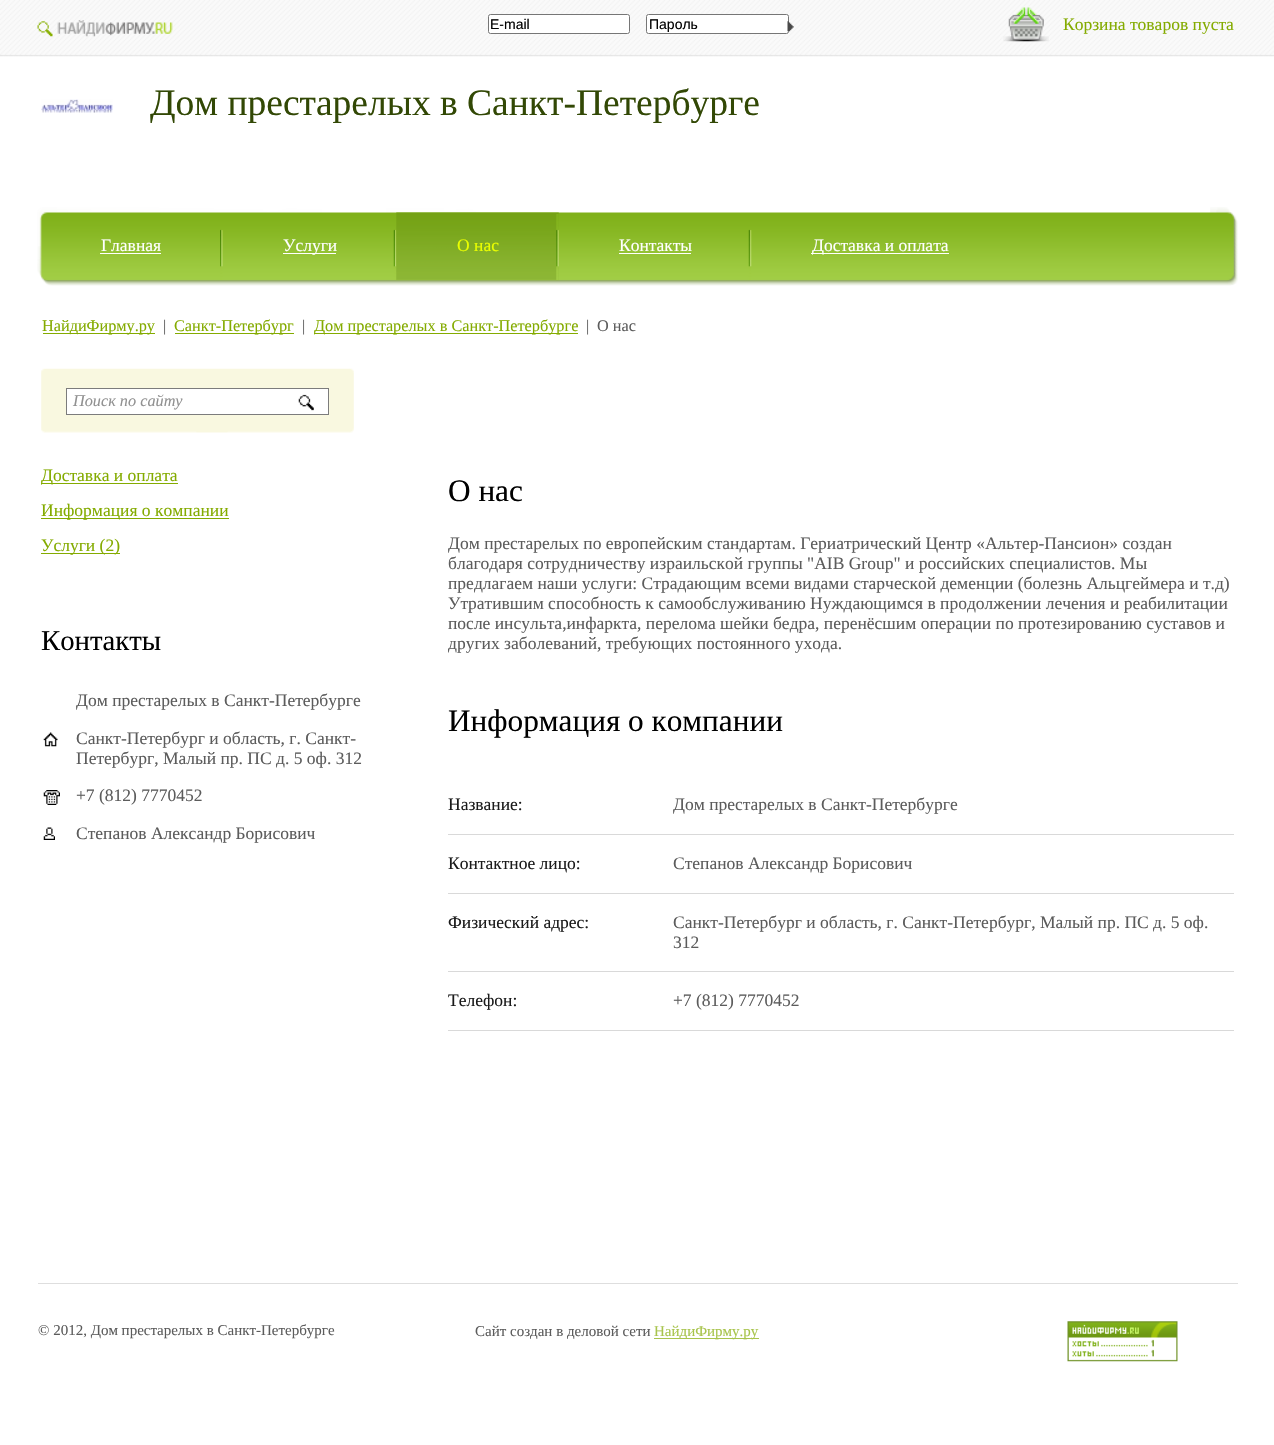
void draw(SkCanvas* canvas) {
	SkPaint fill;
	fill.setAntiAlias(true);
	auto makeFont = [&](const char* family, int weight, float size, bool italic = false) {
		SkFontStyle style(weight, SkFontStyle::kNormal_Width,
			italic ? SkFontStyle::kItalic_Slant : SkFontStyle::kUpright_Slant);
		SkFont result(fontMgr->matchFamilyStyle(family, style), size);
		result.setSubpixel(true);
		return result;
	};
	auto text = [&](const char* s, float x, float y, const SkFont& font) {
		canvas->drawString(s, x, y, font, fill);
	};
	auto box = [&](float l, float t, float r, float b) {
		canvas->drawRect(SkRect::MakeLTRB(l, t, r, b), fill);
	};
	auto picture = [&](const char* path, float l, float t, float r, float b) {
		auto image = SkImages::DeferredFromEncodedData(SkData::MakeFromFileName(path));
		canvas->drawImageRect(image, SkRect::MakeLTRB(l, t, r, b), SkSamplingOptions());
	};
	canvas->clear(0xFFFFFFFF);
	picture("image0.png", 0, 0, 1274, 57);
	picture("image1.png", 37, 20, 173, 37);
	fill.setColor(0xFFFFFFFF);
	canvas->drawRoundRect(SkRect::MakeLTRB(488.5f, 14.5f, 629.5f, 33.5f), 2, 2, fill);
	fill.setStyle(SkPaint::kStroke_Style);
	fill.setStrokeWidth(1);
	fill.setColor(0xFF767676);
	canvas->drawRoundRect(SkRect::MakeLTRB(488.5f, 14.5f, 629.5f, 33.5f), 2, 2, fill);
	fill.setStyle(SkPaint::kFill_Style);
	fill.setColor(0xFFFFFFFF);
	canvas->drawRoundRect(SkRect::MakeLTRB(646.5f, 14.5f, 788.5f, 33.5f), 2, 2, fill);
	fill.setStyle(SkPaint::kStroke_Style);
	fill.setColor(0xFF767676);
	canvas->drawRoundRect(SkRect::MakeLTRB(646.5f, 14.5f, 788.5f, 33.5f), 2, 2, fill);
	picture("image2.png", 787, 21, 794, 32);
	picture("image3.png", 1003, 7, 1049, 42);
	picture("image4.png", 41, 99, 113, 113);
	picture("image5.png", 37, 207, 1238, 286);
	fill.setStyle(SkPaint::kFill_Style);
	fill.setColor(0xFFFFFFFF);
	box(100, 253, 161, 254);
	picture("image6.png", 220, 229, 223, 280);
	box(283, 253, 336, 254);
	picture("image7.png", 393, 229, 397, 280);
	picture("image8.png", 396, 212, 559, 281);
	picture("image9.png", 556, 214, 559, 280);
	box(619, 253, 691, 254);
	picture("image7.png", 748, 229, 752, 280);
	box(811, 253, 949, 254);
	fill.setColor(0xFF84AB00);
	box(43, 333, 155, 334);
	box(175, 333, 294, 334);
	box(314, 333, 578, 334);
	picture("image10.png", 41, 368, 354, 433);
	fill.setColor(0xFFFFFFFF);
	canvas->drawRect(SkRect::MakeLTRB(66.5f, 388.5f, 328.5f, 414.5f), fill);
	fill.setStyle(SkPaint::kStroke_Style);
	fill.setColor(0xFF7C7C7C);
	canvas->drawRect(SkRect::MakeLTRB(66.5f, 388.5f, 328.5f, 414.5f), fill);
	picture("image11.png", 298, 394, 314, 411);
	fill.setStyle(SkPaint::kFill_Style);
	fill.setColor(0xFF84AB00);
	box(41, 483, 178, 484);
	box(41, 518, 229, 519);
	box(41, 553, 120, 554);
	picture("image12.png", 43, 732, 58, 747);
	picture("image13.png", 43, 790, 60, 805);
	picture("image14.png", 43, 827, 55, 840);
	fill.setColor(0xFFD9D9D9);
	box(448, 834, 1234, 835);
	box(448, 893, 1234, 894);
	box(448, 971, 1234, 972);
	box(448, 1030, 1234, 1031);
	fill.setColor(0xFFDEDEDE);
	box(38, 1283, 1238, 1284);
	fill.setColor(0xFFA8C44C);
	box(654, 1338, 759, 1339);
	picture("image15.png", 1067, 1321, 1178, 1362);
	auto font1 = makeFont("Liberation Sans", 400, 14);
	fill.setColor(0xFF000000);
	text("E-mail", 490, 29, font1);
	text("Пароль", 649, 29, font1);
	auto font2 = makeFont("Liberation Serif", 400, 17.5f);
	fill.setColor(0xFF84AB00);
	text("Корзина товаров пуста", 1063, 30, font2);
	auto font3 = makeFont("Liberation Serif", 400, 37.5f);
	fill.setColor(0xFF324805);
	text("Дом престарелых в Санкт-Петербурге", 150, 115, font3);
	fill.setColor(0xFFFFFFFF);
	text("Главная", 101, 251, font2);
	text("Услуги", 283, 251, font2);
	fill.setColor(0xFFEAFF00);
	text("О нас", 457, 251, font2);
	fill.setColor(0xFFFFFFFF);
	text("Контакты", 619, 251, font2);
	text("Доставка и оплата", 812, 251, font2);
	auto font4 = makeFont("Liberation Serif", 400, 16.25f);
	fill.setColor(0xFF84AB00);
	text("НайдиФирму.ру", 42, 331, font4);
	fill.setColor(0xFF5C5C5C);
	text("|", 163, 331, font4);
	fill.setColor(0xFF84AB00);
	text("Санкт-Петербург", 174, 331, font4);
	fill.setColor(0xFF5C5C5C);
	text("|", 302, 331, font4);
	fill.setColor(0xFF84AB00);
	text("Дом престарелых в Санкт-Петербурге", 314, 331, font4);
	fill.setColor(0xFF5C5C5C);
	text("|", 586, 331, font4);
	text("О нас", 597, 331, font4);
	auto font5 = makeFont("Liberation Serif", 400, 16.25f, true);
	fill.setColor(0xFF919191);
	text("Поиск по сайту", 73, 406, font5);
	fill.setColor(0xFF84AB00);
	text("Доставка и оплата", 41, 481, font2);
	text("Информация о компании", 41, 516, font2);
	text("Услуги (2)", 41, 551, font2);
	auto font6 = makeFont("Liberation Serif", 400, 28.75f);
	fill.setColor(0xFF000000);
	text("Контакты", 41, 650, font6);
	fill.setColor(0xFF5C5C5C);
	text("Дом престарелых в Санкт-Петербурге", 76, 706, font2);
	text("Санкт-Петербург и область, г. Санкт-", 76, 744, font2);
	text("Петербург, Малый пр. ПС д. 5 оф. 312", 76, 764, font2);
	text("+7 (812) 7770452", 76, 801, font2);
	text("Степанов Александр Борисович", 76, 839, font2);
	auto font7 = makeFont("Liberation Serif", 400, 31.25f);
	fill.setColor(0xFF000000);
	text("О нас", 448, 501, font7);
	fill.setColor(0xFF5C5C5C);
	text("Дом престарелых по европейским стандартам. Гериатрический Центр «Альтер-Пансион» создан", 448, 549, font2);
	text("благодаря сотрудничеству израильской группы \"AIB Group\" и российских специалистов. Мы", 448, 569, font2);
	text("предлагаем наши услуги: Страдающим всеми видами старческой деменции (болезнь Альцгеймера и т.д)", 448, 589, font2);
	text("Утратившим способность к самообслуживанию Нуждающимся в продолжении лечения и реабилитации", 448, 609, font2);
	text("после инсульта,инфаркта, перелома шейки бедра, перенёсшим операции по протезированию суставов и", 448, 629, font2);
	text("других заболеваний, требующих постоянного ухода.", 448, 649, font2);
	fill.setColor(0xFF000000);
	text("Информация о компании", 448, 731, font7);
	fill.setColor(0xFF1A1A1A);
	text("Название:", 448, 810, font2);
	fill.setColor(0xFF5C5C5C);
	text("Дом престарелых в Санкт-Петербурге", 673, 810, font2);
	fill.setColor(0xFF1A1A1A);
	text("Контактное лицо:", 448, 869, font2);
	fill.setColor(0xFF5C5C5C);
	text("Степанов Александр Борисович", 673, 869, font2);
	fill.setColor(0xFF1A1A1A);
	text("Физический адрес:", 448, 928, font2);
	fill.setColor(0xFF5C5C5C);
	text("Санкт-Петербург и область, г. Санкт-Петербург, Малый пр. ПС д. 5 оф.", 673, 928, font2);
	text("312", 673, 948, font2);
	fill.setColor(0xFF1A1A1A);
	text("Телефон:", 448, 1006, font2);
	fill.setColor(0xFF5C5C5C);
	text("+7 (812) 7770452", 673, 1006, font2);
	auto font8 = makeFont("Liberation Serif", 400, 15);
	text("© 2012, Дом престарелых в Санкт-Петербурге", 38, 1335, font8);
	text("Сайт создан в деловой сети", 475, 1336, font8);
	fill.setColor(0xFFA8C44C);
	text("НайдиФирму.ру", 654, 1336, font8);
}
